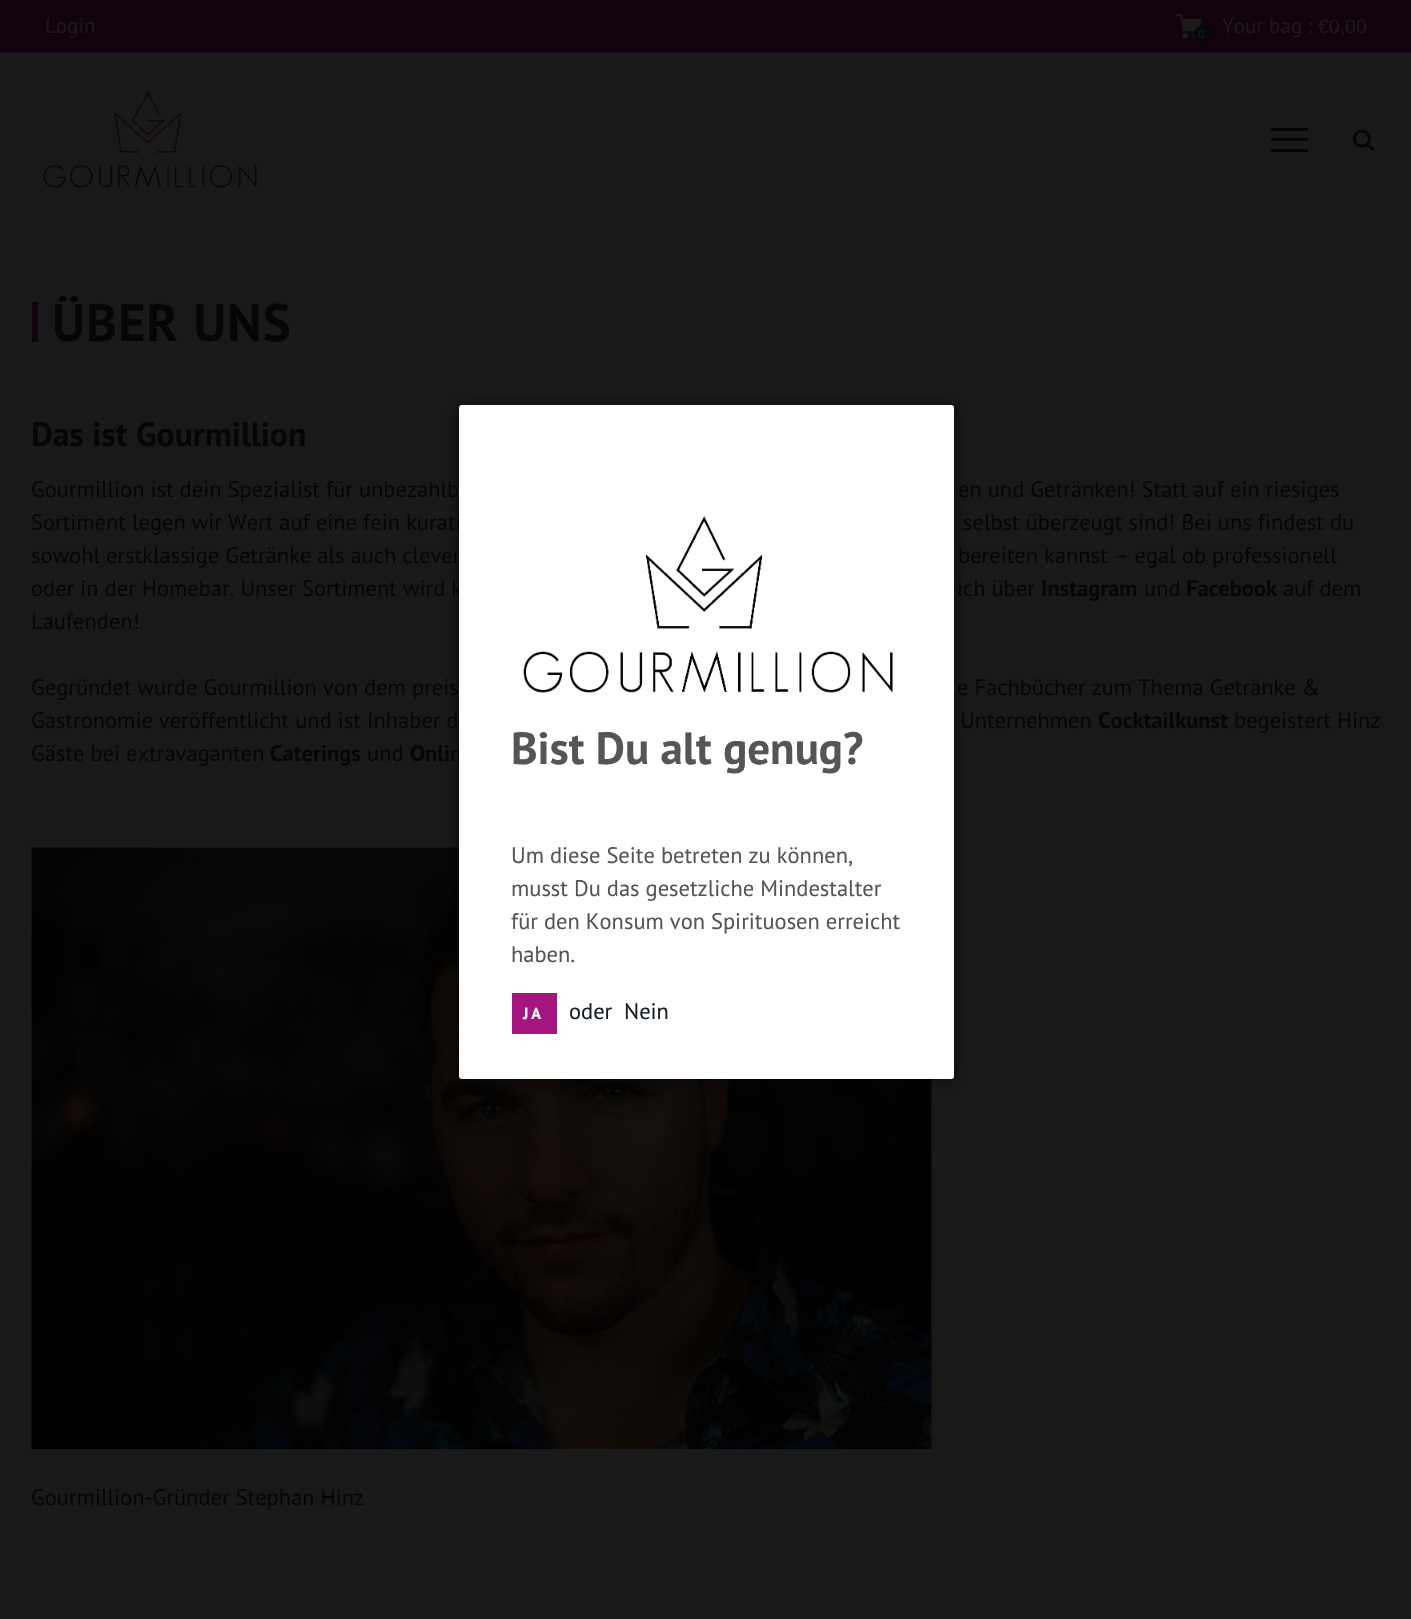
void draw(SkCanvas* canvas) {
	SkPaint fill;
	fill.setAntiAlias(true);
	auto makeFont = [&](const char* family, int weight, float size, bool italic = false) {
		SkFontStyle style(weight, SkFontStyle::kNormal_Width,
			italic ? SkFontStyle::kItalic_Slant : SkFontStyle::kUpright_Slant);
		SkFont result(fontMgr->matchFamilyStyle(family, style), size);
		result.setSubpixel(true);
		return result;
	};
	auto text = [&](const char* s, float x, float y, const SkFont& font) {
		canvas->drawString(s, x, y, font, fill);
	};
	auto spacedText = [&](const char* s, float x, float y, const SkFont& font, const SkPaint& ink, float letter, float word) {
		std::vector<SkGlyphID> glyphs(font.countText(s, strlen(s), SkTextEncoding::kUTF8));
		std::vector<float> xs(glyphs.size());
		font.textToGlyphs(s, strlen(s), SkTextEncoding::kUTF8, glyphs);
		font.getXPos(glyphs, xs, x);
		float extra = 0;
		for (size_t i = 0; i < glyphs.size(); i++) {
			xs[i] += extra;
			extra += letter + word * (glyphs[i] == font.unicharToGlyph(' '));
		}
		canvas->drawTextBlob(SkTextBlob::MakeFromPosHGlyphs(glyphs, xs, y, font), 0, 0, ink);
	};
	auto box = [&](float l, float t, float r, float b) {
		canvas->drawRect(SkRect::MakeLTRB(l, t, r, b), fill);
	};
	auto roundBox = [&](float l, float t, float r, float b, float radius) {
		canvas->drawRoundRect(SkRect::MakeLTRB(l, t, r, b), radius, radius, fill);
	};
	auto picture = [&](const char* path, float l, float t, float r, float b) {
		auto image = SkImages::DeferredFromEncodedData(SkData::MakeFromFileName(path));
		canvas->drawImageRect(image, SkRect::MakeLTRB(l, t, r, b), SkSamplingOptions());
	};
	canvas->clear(0xFF191919);
	fill.setColor(0xFF11020D);
	box(0, 0, 1411, 53);
	picture("image0.png", 1176, 14, 1202, 39);
	fill.setColor(0xFF070708);
	roundBox(1194, 26, 1211, 42, 8);
	picture("image1.png", 43, 91, 257, 188);
	fill.setColor(0xFF070707);
	box(1271, 128, 1308, 131);
	box(1271, 138, 1308, 141);
	box(1271, 149, 1308, 152);
	picture("image2.png", 1353, 129, 1374, 151);
	fill.setColor(0xFF11020D);
	box(32, 302, 38, 342);
	picture("image3.png", 31, 847, 932, 1449);
	fill.setColor(0x80000000);
	fill.setMaskFilter(SkMaskFilter::MakeBlur(kNormal_SkBlurStyle, 7.5f));
	canvas->drawRoundRect(SkRect::MakeLTRB(459, 405, 954, 1079), 3, 3, fill);
	fill.setMaskFilter(nullptr);
	auto font1 = makeFont("PT Sans", 400, 21);
	fill.setColor(0xFF191919);
	text("Login", 45, 33, font1);
	auto font2 = makeFont("Liberation Sans", 400, 12);
	text("0", 1198, 38, font2);
	text("Your bag :", 1222, 33, font1);
	auto font3 = makeFont("Liberation Sans", 400, 19.5f);
	text("€0,00", 1318, 33, font3);
	auto font4 = makeFont("PT Sans", 700, 52.5f);
	fill.setColor(0xFF060606);
	spacedText("ÜBER UNS", 52, 341, font4, fill, 1, 0);
	auto font5 = makeFont("PT Sans", 700, 33.75f);
	text("Das ist Gourmillion", 31, 446, font5);
	auto font6 = makeFont("PT Sans", 400, 22.5f);
	text("Gourmillion ist dein Spezialist für unbezahlb", 31, 497, font6);
	text("en und Getränken! Statt auf ein riesiges", 958, 497, font6);
	text("Sortiment legen wir Wert auf eine fein kurati", 31, 530, font6);
	text("selbst überzeugt sind! Bei uns findest du", 963, 530, font6);
	text("sowohl erstklassige Getränke als auch clever", 31, 563, font6);
	text("bereiten kannst – egal ob professionell", 958, 563, font6);
	text("oder in der Homebar. Unser Sortiment wird k", 31, 596, font6);
	text("ich über", 957, 596, font6);
	auto font7 = makeFont("PT Sans", 700, 22.5f);
	text("Instagram", 1041, 596, font7);
	text("und", 1144, 596, font6);
	text("Facebook", 1186, 596, font7);
	text("auf dem", 1283, 596, font6);
	text("Laufenden!", 31, 629, font6);
	text("Gegründet wurde Gourmillion von dem preis", 31, 695, font6);
	text("e Fachbücher zum Thema Getränke &", 957, 695, font6);
	text("Gastronomie veröffentlicht und ist Inhaber d", 31, 728, font6);
	text("Unternehmen", 960, 728, font6);
	text("Cocktailkunst", 1098, 728, font7);
	text("begeistert Hinz", 1234, 728, font6);
	text("Gäste bei extravaganten", 31, 761, font6);
	text("Caterings", 270, 761, font7);
	text("und", 367, 761, font6);
	text("Onlin", 410, 761, font7);
	text("Gourmillion-Gründer Stephan Hinz", 31, 1505, font6);
	fill.setColor(0xFFFFFFFF);
	roundBox(459, 405, 954, 1079, 3);
	picture("image4.png", 523, 516, 893, 693);
	auto font8 = makeFont("PT Sans", 700, 45);
	fill.setColor(0xFF555555);
	text("Bist Du alt genug?", 511, 764, font8);
	text("Um diese Seite betreten zu können,", 511, 863, font6);
	text("musst Du das gesetzliche Mindestalter", 511, 896, font6);
	text("für den Konsum von Spirituosen erreicht", 511, 929, font6);
	text("haben.", 511, 962, font6);
	fill.setColor(0xFFA61680);
	box(512, 993, 557, 1034);
	auto font9 = makeFont("PT Sans", 700, 16);
	fill.setColor(0xFFFFFFFF);
	spacedText("JA", 523, 1019, font9, fill, 3, 0);
	fill.setColor(0xFF161D25);
	text("oder", 569, 1019, font6);
	text("Nein", 624, 1019, font6);
}
